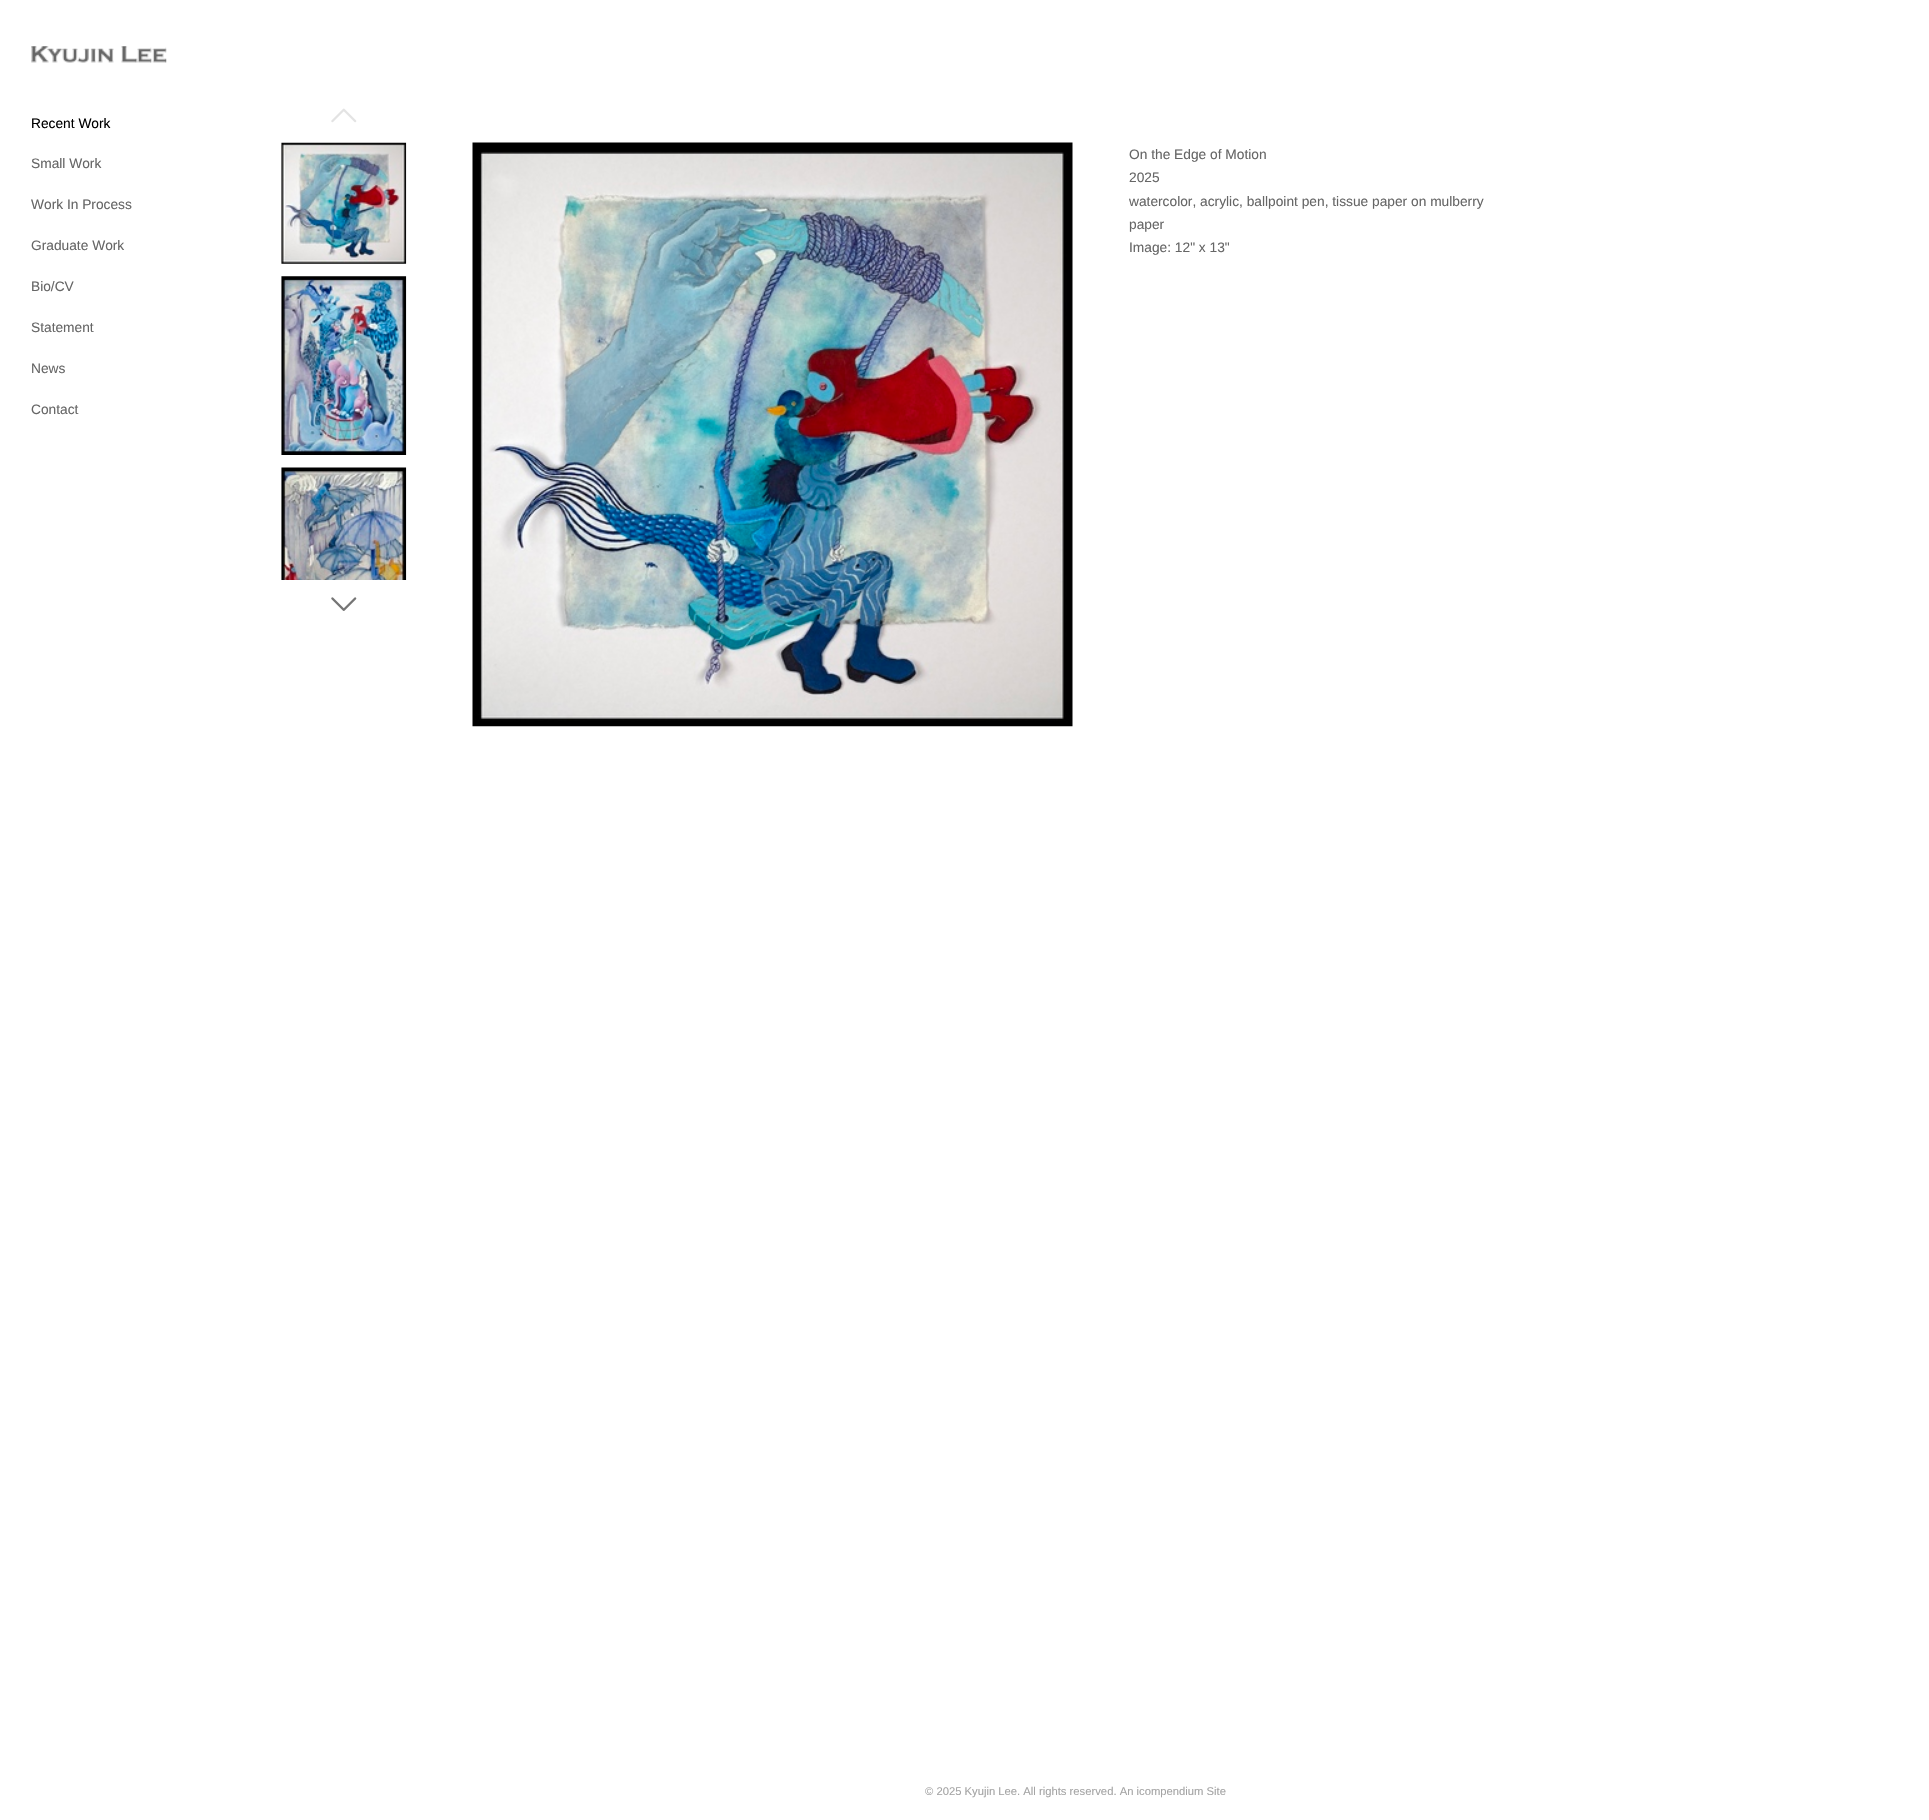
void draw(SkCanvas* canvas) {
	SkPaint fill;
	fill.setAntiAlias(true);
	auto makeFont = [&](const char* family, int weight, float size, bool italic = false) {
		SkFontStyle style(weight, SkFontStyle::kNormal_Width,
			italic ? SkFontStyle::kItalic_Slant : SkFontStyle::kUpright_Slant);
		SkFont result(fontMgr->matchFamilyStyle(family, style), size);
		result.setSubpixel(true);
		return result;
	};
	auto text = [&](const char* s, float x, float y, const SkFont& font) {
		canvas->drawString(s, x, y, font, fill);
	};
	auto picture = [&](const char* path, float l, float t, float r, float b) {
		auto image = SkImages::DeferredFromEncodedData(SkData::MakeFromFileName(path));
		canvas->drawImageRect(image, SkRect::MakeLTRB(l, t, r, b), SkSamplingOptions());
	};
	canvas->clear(0xFFFFFFFF);
	picture("image0.png", 31, 46, 167, 63);
	picture("image1.png", 331, 108, 357, 123);
	picture("image2.png", 281, 142, 407, 264);
	picture("image3.png", 281, 276, 407, 455);
	picture("image4.png", 281, 467, 407, 580);
	picture("image5.png", 331, 597, 357, 611);
	picture("image6.png", 472, 142, 1073, 727);
	auto font1 = makeFont("Liberation Sans", 400, 13.75f);
	fill.setColor(0xFF000000);
	text("Recent Work", 31, 128, font1);
	fill.setColor(0xFF666666);
	text("Small Work", 31, 168, font1);
	text("Work In Process", 31, 209, font1);
	text("Graduate Work", 31, 250, font1);
	text("Bio/CV", 31, 291, font1);
	text("Statement", 31, 332, font1);
	text("News", 31, 373, font1);
	text("Contact", 31, 414, font1);
	text("On the Edge of Motion", 1129, 159, font1);
	text("2025", 1129, 182, font1);
	text("watercolor, acrylic, ballpoint pen, tissue paper on mulberry", 1129, 206, font1);
	text("paper", 1129, 229, font1);
	text("Image: 12\" x 13\"", 1129, 252, font1);
	auto font2 = makeFont("Liberation Sans", 400, 11.25f);
	fill.setColor(0xFFA4A4A4);
	text("© 2025 Kyujin Lee. All rights reserved. An icompendium Site", 925, 1795, font2);
}
